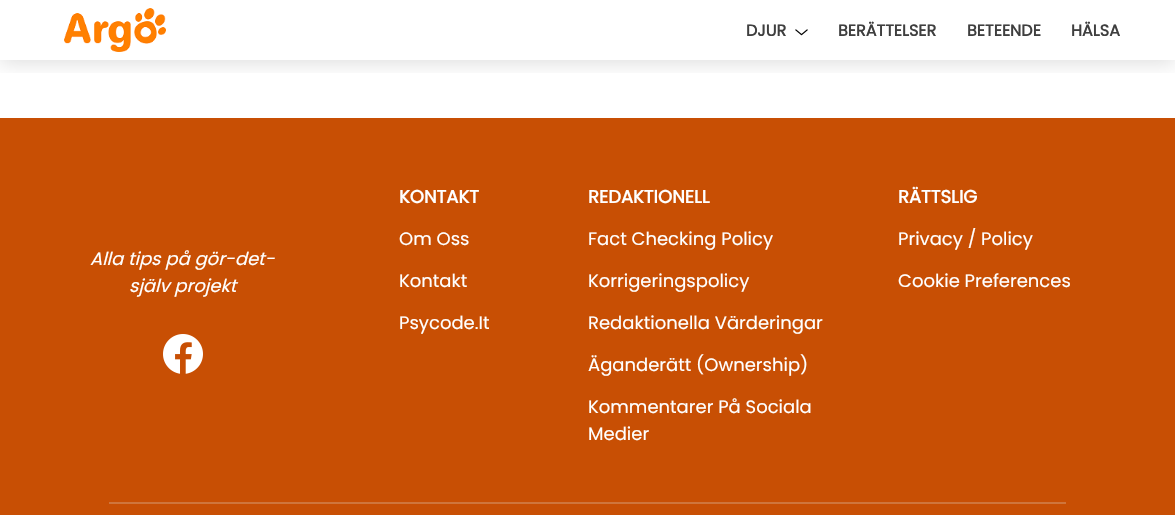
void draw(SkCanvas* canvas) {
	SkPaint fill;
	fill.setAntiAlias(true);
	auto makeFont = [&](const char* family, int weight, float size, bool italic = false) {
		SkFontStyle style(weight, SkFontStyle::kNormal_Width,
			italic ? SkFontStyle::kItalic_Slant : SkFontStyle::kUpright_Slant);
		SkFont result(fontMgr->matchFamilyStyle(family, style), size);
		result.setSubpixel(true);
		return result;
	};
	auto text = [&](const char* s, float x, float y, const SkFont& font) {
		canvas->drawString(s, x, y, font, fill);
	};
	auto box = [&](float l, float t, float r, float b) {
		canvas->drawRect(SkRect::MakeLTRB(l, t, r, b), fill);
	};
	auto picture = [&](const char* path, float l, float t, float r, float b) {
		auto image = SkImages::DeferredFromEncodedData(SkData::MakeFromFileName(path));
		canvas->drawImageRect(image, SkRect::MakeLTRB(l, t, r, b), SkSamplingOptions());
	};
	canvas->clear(0xFFFFFFFF);
	canvas->save();
	canvas->clipRect(SkRect::MakeLTRB(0, 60, 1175, 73));
	fill.setColor(0x21000000);
	fill.setMaskFilter(SkMaskFilter::MakeBlur(kNormal_SkBlurStyle, 10));
	canvas->drawRect(SkRect::MakeLTRB(0, 3, 1175, 63), fill);
	fill.setMaskFilter(nullptr);
	canvas->restore();
	picture("image0.png", 64, 8, 166, 52);
	picture("image1.png", 795, 29, 808, 36);
	fill.setColor(0xFFC84F04);
	box(0, 118, 1175, 515);
	picture("image2.png", 163, 334, 203, 374);
	fill.setColor(0xFFCF753C);
	box(109, 502, 1066, 504);
	auto font1 = makeFont("Poppins", 700, 16);
	fill.setColor(0xFF3F3F3F);
	text("DJUR", 746, 36, font1);
	text("BERÄTTELSER", 838, 36, font1);
	text("BETEENDE", 967, 36, font1);
	text("HÄLSA", 1071, 36, font1);
	auto font2 = makeFont("Poppins", 400, 18, true);
	fill.setColor(0xFFFFFFFF);
	text("Alla tips på gör-det-", 90, 265, font2);
	text("själv projekt", 129, 292, font2);
	auto font3 = makeFont("Poppins", 700, 18);
	text("KONTAKT", 399, 203, font3);
	auto font4 = makeFont("Poppins", 400, 18);
	text("Om Oss", 399, 245, font4);
	text("Kontakt", 399, 287, font4);
	text("Psycode.It", 399, 329, font4);
	text("REDAKTIONELL", 588, 203, font3);
	text("Fact Checking Policy", 588, 245, font4);
	text("Korrigeringspolicy", 588, 287, font4);
	text("Redaktionella Värderingar", 588, 329, font4);
	text("Äganderätt (Ownership)", 588, 371, font4);
	text("Kommentarer På Sociala", 588, 413, font4);
	text("Medier", 588, 440, font4);
	text("RÄTTSLIG", 898, 203, font3);
	text("Privacy / Policy", 898, 245, font4);
	text("Cookie Preferences", 898, 287, font4);
}
